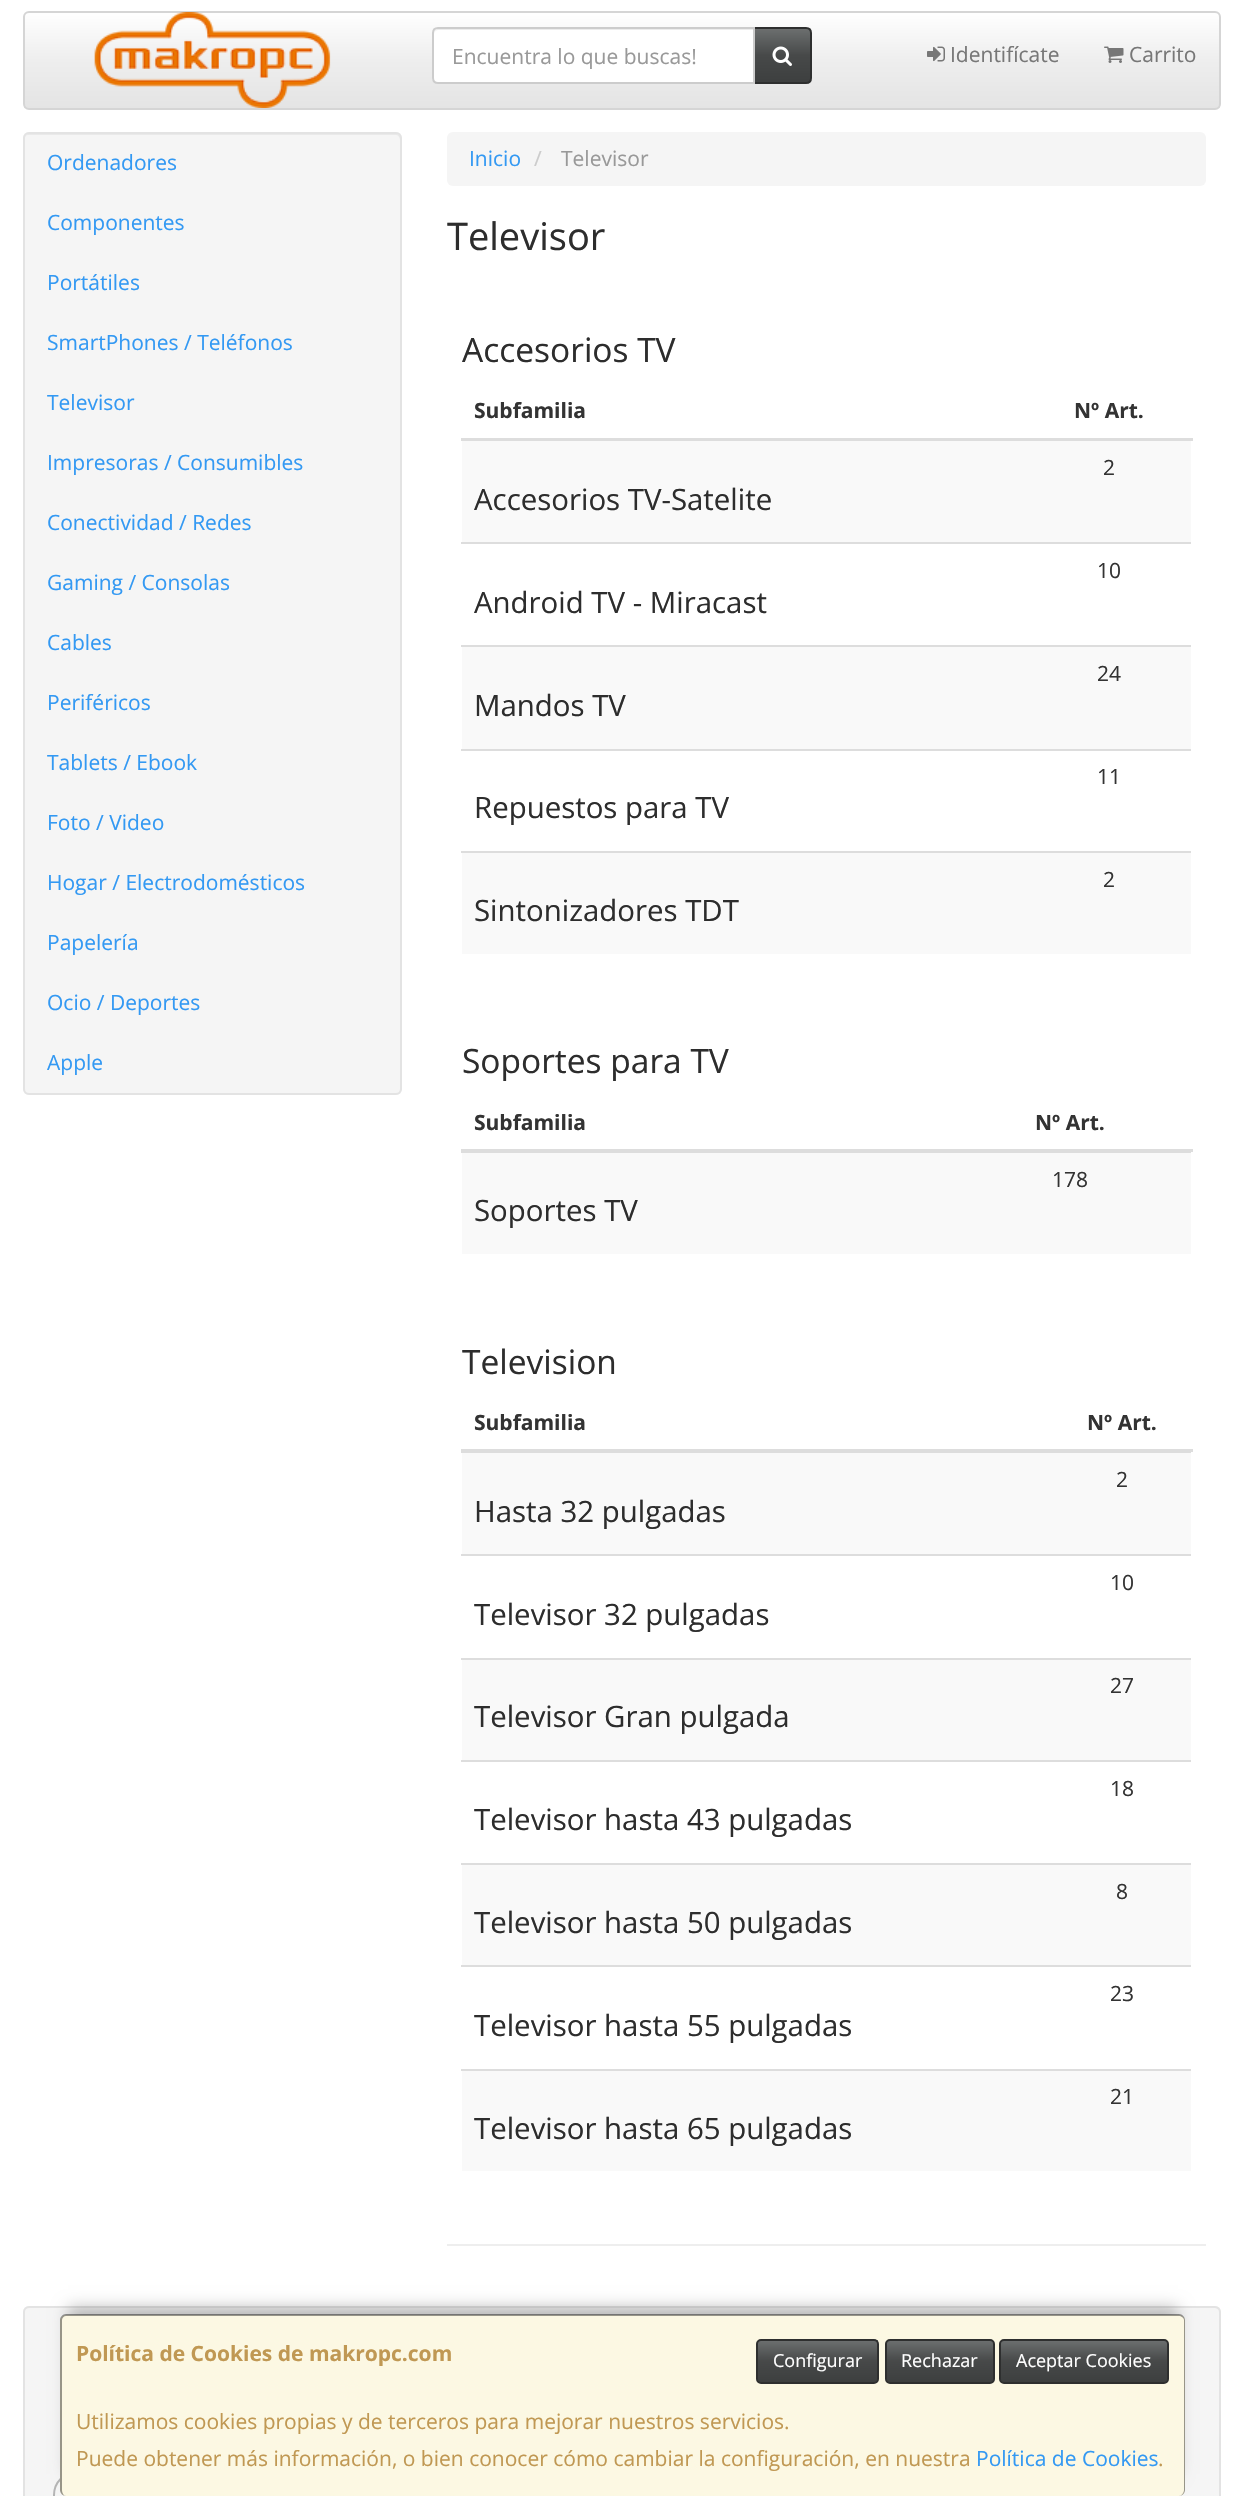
void draw(SkCanvas* canvas) {
	SkPaint fill;
	fill.setAntiAlias(true);
	auto makeFont = [&](const char* family, int weight, float size, bool italic = false) {
		SkFontStyle style(weight, SkFontStyle::kNormal_Width,
			italic ? SkFontStyle::kItalic_Slant : SkFontStyle::kUpright_Slant);
		SkFont result(fontMgr->matchFamilyStyle(family, style), size);
		result.setSubpixel(true);
		return result;
	};
	auto text = [&](const char* s, float x, float y, const SkFont& font) {
		canvas->drawString(s, x, y, font, fill);
	};
	auto box = [&](float l, float t, float r, float b) {
		canvas->drawRect(SkRect::MakeLTRB(l, t, r, b), fill);
	};
	auto roundBox = [&](float l, float t, float r, float b, float radius) {
		canvas->drawRoundRect(SkRect::MakeLTRB(l, t, r, b), radius, radius, fill);
	};
	auto picture = [&](const char* path, float l, float t, float r, float b) {
		auto image = SkImages::DeferredFromEncodedData(SkData::MakeFromFileName(path));
		canvas->drawImageRect(image, SkRect::MakeLTRB(l, t, r, b), SkSamplingOptions());
	};
	canvas->clear(0xFFFFFFFF);
	canvas->save();
	canvas->clipPath(SkPathBuilder().moveTo(29, 11).lineTo(1215, 11).cubicTo(1218.5f, 11, 1221, 13.5f, 1221, 17).lineTo(1221, 104).cubicTo(1221, 107.5f, 1218.5f, 110, 1215, 110).lineTo(29, 110).cubicTo(25.5f, 110, 23, 107.5f, 23, 104).lineTo(23, 17).cubicTo(23, 13.5f, 25.5f, 11, 29, 11).close().detach(), true);
	{
		const SkColor colors[] = {0xFFFFFFFF, 0xFFEEEEEE, 0xFFE4E4E4};
		const float stops[] = {0, 0.5f, 1};
		const SkPoint ends[] = {{622, 12}, {622, 108}};
		fill.setShader(SkGradientShader::MakeLinear(ends, colors, stops, 3, SkTileMode::kClamp));
		fill.setAlpha(255);
	}
	box(24, 12, 1220, 108);
	canvas->restore();
	fill.setStyle(SkPaint::kStroke_Style);
	fill.setStrokeWidth(2);
	fill.setShader(nullptr);
	fill.setColor(0xFFD5D5D5);
	canvas->drawRoundRect(SkRect::MakeLTRB(24, 12, 1220, 109), 5, 5, fill);
	picture("image0.png", 94, 12, 331, 108);
	fill.setStyle(SkPaint::kFill_Style);
	{
		const SkColor colors[] = {0xFF6D7070, 0xFF474949, 0xFF3D3F3F};
		const float stops[] = {0, 0.5f, 1};
		const SkPoint ends[] = {{782, 28}, {782, 83}};
		fill.setShader(SkGradientShader::MakeLinear(ends, colors, stops, 3, SkTileMode::kClamp));
		fill.setAlpha(255);
	}
	box(755, 29, 810, 83);
	fill.setStyle(SkPaint::kStroke_Style);
	fill.setShader(nullptr);
	fill.setColor(0xFF2E2F2F);
	canvas->drawPath(SkPathBuilder().moveTo(754, 28).lineTo(806, 28).cubicTo(809, 28, 811, 30, 811, 33).lineTo(811, 78).cubicTo(811, 81, 809, 83, 806, 83).lineTo(754, 83).close().detach(), fill);
	fill.setStyle(SkPaint::kFill_Style);
	fill.setColor(0xFFFFFFFF);
	canvas->drawPath(SkPathBuilder().moveTo(438, 27).lineTo(755, 27).lineTo(755, 84).lineTo(438, 84).cubicTo(434.5f, 84, 432, 81.5f, 432, 78).lineTo(432, 33).cubicTo(432, 29.5f, 434.5f, 27, 438, 27).close().detach(), fill);
	fill.setColor(0xFFECECEC);
	canvas->drawPath(SkPathBuilder().moveTo(438, 30).lineTo(753, 30).lineTo(753, 29).lineTo(439, 29).cubicTo(436, 29, 434, 31, 434, 34).cubicTo(434, 32, 436, 30, 438, 30).close().detach(), fill);
	fill.setStyle(SkPaint::kStroke_Style);
	fill.setColor(0xFFCCCCCC);
	canvas->drawPath(SkPathBuilder().moveTo(438, 28).lineTo(754, 28).lineTo(754, 83).lineTo(438, 83).cubicTo(435, 83, 433, 81, 433, 78).lineTo(433, 33).cubicTo(433, 30, 435, 28, 438, 28).close().detach(), fill);
	picture("image1.png", 772, 46, 792, 66);
	picture("image2.png", 927, 46, 945, 62);
	picture("image3.png", 1104, 46, 1124, 63);
	fill.setStyle(SkPaint::kFill_Style);
	fill.setColor(0xFFF5F5F5);
	roundBox(23, 132, 402, 1095, 6);
	fill.setColor(0xFFE9E9E9);
	canvas->drawPath(SkPathBuilder().moveTo(28, 135).lineTo(396, 135).cubicTo(398, 135, 400, 137, 400, 140).lineTo(400, 1090).lineTo(399, 1093).cubicTo(400, 1092, 401, 1090, 401, 1089).lineTo(401, 139).cubicTo(401, 136, 399, 134, 396, 134).lineTo(29, 134).cubicTo(26, 134, 24, 136, 24, 139).lineTo(24, 140).cubicTo(24, 137, 26, 135, 28, 135).close().detach(), fill);
	fill.setStyle(SkPaint::kStroke_Style);
	fill.setColor(0xFFE3E3E3);
	canvas->drawRoundRect(SkRect::MakeLTRB(24, 133, 401, 1094), 5, 5, fill);
	fill.setStyle(SkPaint::kFill_Style);
	fill.setColor(0xFFF5F5F5);
	roundBox(447, 132, 1206, 186, 6);
	fill.setColor(0xFFEEEEEE);
	box(447, 2244, 1206, 2246);
	fill.setColor(0xFFDDDDDD);
	box(461, 438, 1193, 441);
	fill.setColor(0xFFF9F9F9);
	box(462, 441, 1191, 542);
	fill.setColor(0xFFDDDDDD);
	box(461, 542, 1191, 544);
	fill.setColor(0xFFF9F9F9);
	box(462, 647, 1191, 749);
	fill.setColor(0xFFDDDDDD);
	box(461, 645, 1191, 647);
	box(461, 749, 1191, 751);
	fill.setColor(0xFFF9F9F9);
	box(462, 853, 1191, 954);
	fill.setColor(0xFFDDDDDD);
	box(461, 851, 1191, 853);
	box(461, 1149, 1193, 1152);
	fill.setColor(0xFFF9F9F9);
	box(462, 1153, 1191, 1254);
	fill.setColor(0xFFDDDDDD);
	box(461, 1152, 1191, 1153);
	box(461, 1449, 1193, 1452);
	fill.setColor(0xFFF9F9F9);
	box(462, 1453, 1191, 1554);
	fill.setColor(0xFFDDDDDD);
	box(461, 1452, 1191, 1453);
	box(461, 1554, 1191, 1556);
	fill.setColor(0xFFF9F9F9);
	box(462, 1660, 1191, 1760);
	fill.setColor(0xFFDDDDDD);
	box(461, 1658, 1191, 1660);
	box(461, 1760, 1191, 1762);
	fill.setColor(0xFFF9F9F9);
	box(462, 1865, 1191, 1965);
	fill.setColor(0xFFDDDDDD);
	box(461, 1863, 1191, 1865);
	box(461, 1965, 1191, 1967);
	fill.setColor(0xFFF9F9F9);
	box(462, 2071, 1191, 2171);
	fill.setColor(0xFFDDDDDD);
	box(461, 2069, 1191, 2071);
	fill.setColor(0xFFF5F5F5);
	roundBox(23, 2306, 1221, 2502, 6);
	fill.setColor(0xFFE9E9E9);
	canvas->drawPath(SkPathBuilder().moveTo(28, 2308).lineTo(1215, 2308).cubicTo(1217, 2308, 1220, 2311, 1220, 2313).cubicTo(1220, 2310, 1218, 2307, 1215, 2307).lineTo(29, 2307).cubicTo(26, 2307, 24, 2310, 24, 2313).cubicTo(24, 2311, 26, 2308, 28, 2308).close().detach(), fill);
	fill.setStyle(SkPaint::kStroke_Style);
	fill.setColor(0xFFE3E3E3);
	canvas->drawRoundRect(SkRect::MakeLTRB(24, 2307, 1220, 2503), 5, 5, fill);
	fill.setColor(0xFFB5B5B5);
	canvas->drawCircle(77, 2495, 23, fill);
	fill.setStyle(SkPaint::kFill_Style);
	fill.setColor(0x40000000);
	fill.setMaskFilter(SkMaskFilter::MakeBlur(kNormal_SkBlurStyle, 7.5f));
	canvas->drawRect(SkRect::MakeLTRB(68, 2307, 1178, 2474), fill);
	fill.setMaskFilter(nullptr);
	fill.setColor(0xFFFCF8E3);
	roundBox(60, 2315, 1185, 2496, 6);
	fill.setColor(0x66000000);
	canvas->drawPath(SkPathBuilder(SkPathFillType::kEvenOdd).moveTo(66, 2314).lineTo(1179, 2314).cubicTo(1182, 2314, 1185, 2317, 1185, 2320).lineTo(1185, 2490).cubicTo(1185, 2493, 1182, 2496, 1179, 2496).lineTo(66, 2496).cubicTo(63, 2496, 60, 2493, 60, 2490).lineTo(60, 2320).cubicTo(60, 2317, 63, 2314, 66, 2314).close().moveTo(66, 2316).lineTo(1179, 2316).cubicTo(1181, 2316, 1184, 2318, 1184, 2320).lineTo(1184, 2490).cubicTo(1184, 2493, 1181, 2496, 1179, 2496).lineTo(66, 2496).cubicTo(64, 2496, 62, 2493, 62, 2490).lineTo(62, 2320).cubicTo(62, 2318, 64, 2316, 66, 2316).close().detach(), fill);
	{
		const SkColor colors[] = {0xFF6D7070, 0xFF474949, 0xFF3D3F3F};
		const float stops[] = {0, 0.5f, 1};
		const SkPoint ends[] = {{818, 2340}, {818, 2382}};
		fill.setShader(SkGradientShader::MakeLinear(ends, colors, stops, 3, SkTileMode::kClamp));
		fill.setAlpha(255);
	}
	box(758, 2340, 878, 2382);
	fill.setStyle(SkPaint::kStroke_Style);
	fill.setShader(nullptr);
	fill.setColor(0xFF2E2F2F);
	canvas->drawRoundRect(SkRect::MakeLTRB(757, 2340, 878, 2383), 4, 4, fill);
	fill.setStyle(SkPaint::kFill_Style);
	{
		const SkColor colors[] = {0xFF6D7070, 0xFF474949, 0xFF3D3F3F};
		const float stops[] = {0, 0.5f, 1};
		const SkPoint ends[] = {{940, 2340}, {940, 2382}};
		fill.setShader(SkGradientShader::MakeLinear(ends, colors, stops, 3, SkTileMode::kClamp));
		fill.setAlpha(255);
	}
	box(887, 2341, 993, 2382);
	fill.setStyle(SkPaint::kStroke_Style);
	fill.setShader(nullptr);
	fill.setColor(0xFF2E2F2F);
	canvas->drawRoundRect(SkRect::MakeLTRB(886, 2340, 994, 2383), 4, 4, fill);
	fill.setStyle(SkPaint::kFill_Style);
	{
		const SkColor colors[] = {0xFF6D7070, 0xFF474949, 0xFF3D3F3F};
		const float stops[] = {0, 0.5f, 1};
		const SkPoint ends[] = {{1084, 2340}, {1084, 2382}};
		fill.setShader(SkGradientShader::MakeLinear(ends, colors, stops, 3, SkTileMode::kClamp));
		fill.setAlpha(255);
	}
	box(1001, 2341, 1167, 2382);
	fill.setStyle(SkPaint::kStroke_Style);
	fill.setShader(nullptr);
	fill.setColor(0xFF2E2F2F);
	canvas->drawRoundRect(SkRect::MakeLTRB(1000, 2340, 1168, 2383), 4, 4, fill);
	auto font1 = makeFont("Open Sans", 400, 21);
	fill.setStyle(SkPaint::kFill_Style);
	fill.setColor(0xFF999999);
	text("Encuentra lo que buscas!", 452, 64, font1);
	fill.setColor(0xFF777777);
	text("Identifícate", 950, 62, font1);
	text("Carrito", 1129, 62, font1);
	fill.setColor(0xFF3399F3);
	text("Ordenadores", 47, 170, font1);
	text("Componentes", 47, 230, font1);
	text("Portátiles", 47, 290, font1);
	text("SmartPhones / Teléfonos", 47, 350, font1);
	text("Televisor", 47, 410, font1);
	text("Impresoras / Consumibles", 47, 470, font1);
	text("Conectividad / Redes", 47, 530, font1);
	text("Gaming / Consolas", 47, 590, font1);
	text("Cables", 47, 650, font1);
	text("Periféricos", 47, 710, font1);
	text("Tablets / Ebook", 47, 770, font1);
	text("Foto / Video", 47, 830, font1);
	text("Hogar / Electrodomésticos", 47, 890, font1);
	text("Papelería", 47, 950, font1);
	text("Ocio / Deportes", 47, 1010, font1);
	text("Apple", 47, 1070, font1);
	text("Inicio", 469, 166, font1);
	fill.setColor(0xFFCCCCCC);
	text("/", 534, 166, font1);
	fill.setColor(0xFF999999);
	text("Televisor", 561, 166, font1);
	auto font2 = makeFont("Open Sans", 400, 38);
	fill.setColor(0xFF2D2D2D);
	text("Televisor", 447, 250, font2);
	auto font3 = makeFont("Open Sans", 400, 33.5f);
	text("Accesorios TV", 462, 362, font3);
	auto font4 = makeFont("Open Sans", 700, 21);
	fill.setColor(0xFF333333);
	text("Subfamilia", 474, 418, font4);
	text("Nº Art.", 1074, 418, font4);
	text("2", 1103, 475, font1);
	auto font5 = makeFont("Open Sans", 400, 29.4f);
	fill.setColor(0xFF2D2D2D);
	text("Accesorios TV-Satelite", 474, 510, font5);
	fill.setColor(0xFF333333);
	text("10", 1097, 578, font1);
	fill.setColor(0xFF2D2D2D);
	text("Android TV - Miracast", 474, 613, font5);
	fill.setColor(0xFF333333);
	text("24", 1097, 681, font1);
	fill.setColor(0xFF2D2D2D);
	text("Mandos TV", 474, 716, font5);
	fill.setColor(0xFF333333);
	text("11", 1097, 784, font1);
	fill.setColor(0xFF2D2D2D);
	text("Repuestos para TV", 474, 818, font5);
	fill.setColor(0xFF333333);
	text("2", 1103, 887, font1);
	fill.setColor(0xFF2D2D2D);
	text("Sintonizadores TDT", 474, 921, font5);
	text("Soportes para TV", 462, 1073, font3);
	fill.setColor(0xFF333333);
	text("Subfamilia", 474, 1130, font4);
	text("Nº Art.", 1035, 1130, font4);
	text("178", 1052, 1187, font1);
	fill.setColor(0xFF2D2D2D);
	text("Soportes TV", 474, 1221, font5);
	text("Television", 462, 1374, font3);
	fill.setColor(0xFF333333);
	text("Subfamilia", 474, 1430, font4);
	text("Nº Art.", 1087, 1430, font4);
	text("2", 1116, 1487, font1);
	fill.setColor(0xFF2D2D2D);
	text("Hasta 32 pulgadas", 474, 1522, font5);
	fill.setColor(0xFF333333);
	text("10", 1110, 1590, font1);
	fill.setColor(0xFF2D2D2D);
	text("Televisor 32 pulgadas", 474, 1625, font5);
	fill.setColor(0xFF333333);
	text("27", 1110, 1693, font1);
	fill.setColor(0xFF2D2D2D);
	text("Televisor Gran pulgada", 474, 1727, font5);
	fill.setColor(0xFF333333);
	text("18", 1110, 1796, font1);
	fill.setColor(0xFF2D2D2D);
	text("Televisor hasta 43 pulgadas", 474, 1830, font5);
	fill.setColor(0xFF333333);
	text("8", 1116, 1899, font1);
	fill.setColor(0xFF2D2D2D);
	text("Televisor hasta 50 pulgadas", 474, 1933, font5);
	fill.setColor(0xFF333333);
	text("23", 1110, 2001, font1);
	fill.setColor(0xFF2D2D2D);
	text("Televisor hasta 55 pulgadas", 474, 2036, font5);
	fill.setColor(0xFF333333);
	text("21", 1110, 2104, font1);
	fill.setColor(0xFF2D2D2D);
	text("Televisor hasta 65 pulgadas", 474, 2139, font5);
	fill.setColor(0xFFC09853);
	text("Política de Cookies de makropc.com", 76, 2361, font4);
	auto font6 = makeFont("Open Sans", 400, 18);
	fill.setColor(0xFFFFFFFF);
	text("Configurar", 773, 2367, font6);
	text("Rechazar", 901, 2367, font6);
	text("Aceptar Cookies", 1016, 2367, font6);
	fill.setColor(0xFFC09853);
	text("Utilizamos cookies propias y de terceros para mejorar nuestros servicios.", 76, 2429, font1);
	text("Puede obtener más información, o bien conocer cómo cambiar la configuración, en nuestra", 76, 2466, font1);
	fill.setColor(0xFF3399F3);
	text("Política de Cookies", 976, 2466, font1);
	fill.setColor(0xFFC09853);
	text(".", 1158, 2466, font1);
}
